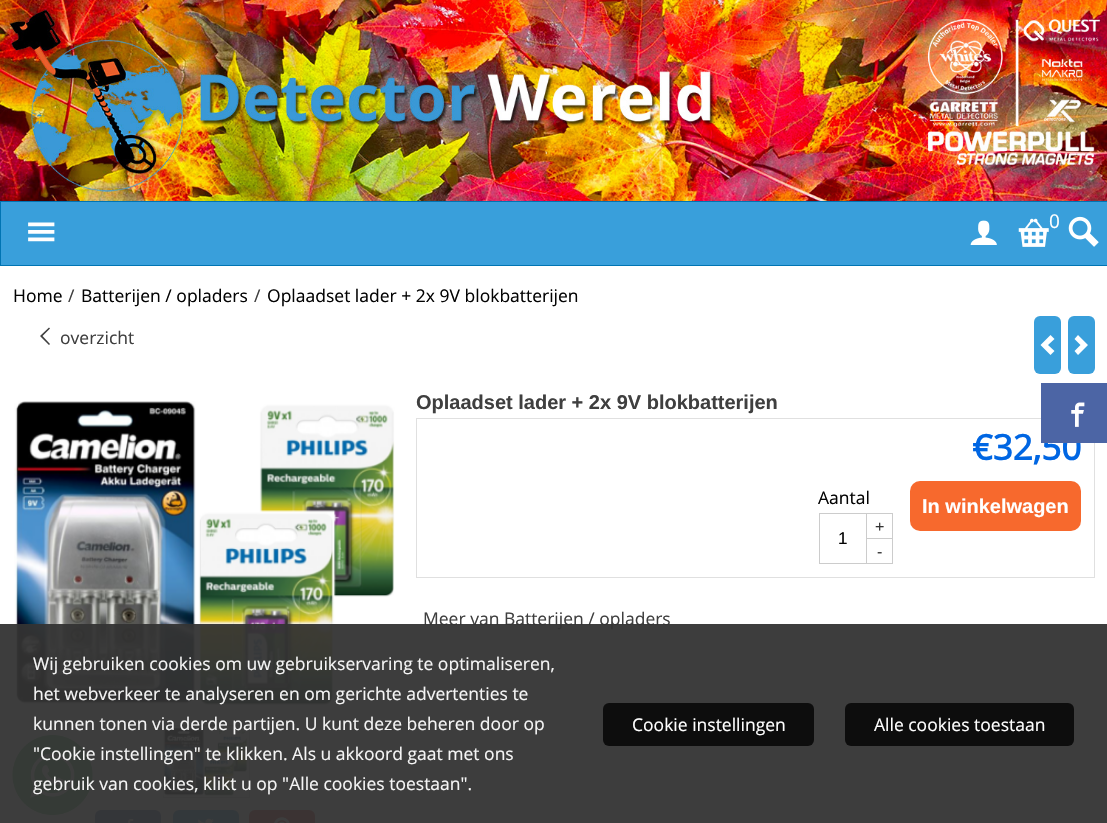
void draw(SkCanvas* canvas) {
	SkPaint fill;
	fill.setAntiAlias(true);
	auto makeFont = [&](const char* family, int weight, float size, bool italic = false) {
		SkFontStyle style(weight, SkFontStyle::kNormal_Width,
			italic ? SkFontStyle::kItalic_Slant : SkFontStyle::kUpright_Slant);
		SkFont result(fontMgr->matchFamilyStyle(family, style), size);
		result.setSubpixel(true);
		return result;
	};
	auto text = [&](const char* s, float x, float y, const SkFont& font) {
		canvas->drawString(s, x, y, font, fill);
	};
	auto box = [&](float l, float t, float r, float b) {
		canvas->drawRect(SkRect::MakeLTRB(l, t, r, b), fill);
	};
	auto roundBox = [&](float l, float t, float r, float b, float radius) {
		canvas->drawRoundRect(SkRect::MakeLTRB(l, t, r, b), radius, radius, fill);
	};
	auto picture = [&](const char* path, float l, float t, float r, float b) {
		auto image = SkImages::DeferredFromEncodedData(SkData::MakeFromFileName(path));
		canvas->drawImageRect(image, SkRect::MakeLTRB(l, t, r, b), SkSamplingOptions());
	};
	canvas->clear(0xFFFFFFFF);
	picture("image0.png", 0, 0, 1107, 201);
	fill.setColor(0xFF399FDB);
	canvas->drawRect(SkRect::MakeLTRB(0.5f, 201.5f, 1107.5f, 265.5f), fill);
	fill.setStyle(SkPaint::kStroke_Style);
	fill.setStrokeWidth(1);
	fill.setColor(0xFF0074B3);
	canvas->drawRect(SkRect::MakeLTRB(0.5f, 201.5f, 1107.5f, 265.5f), fill);
	picture("image1.png", 28, 222, 55, 242);
	picture("image2.png", 970, 220, 997, 245);
	picture("image3.png", 1018, 218, 1049, 247);
	picture("image4.png", 1068, 216, 1099, 247);
	fill.setStyle(SkPaint::kFill_Style);
	fill.setColor(0xFF3F3F3F);
	canvas->drawPath(SkPathBuilder().moveTo(49, 345).lineTo(50, 344).lineTo(42.5f, 336).lineTo(50, 328.5f).lineTo(49, 327.5f).lineTo(40, 336).close().detach(), fill);
	fill.setColor(0xFF399FDB);
	roundBox(1034, 316, 1061, 374, 6);
	fill.setColor(0xFFFFFFFF);
	canvas->drawPath(SkPathBuilder().moveTo(1050.5f, 355).lineTo(1054.5f, 351).lineTo(1048, 345).lineTo(1054.5f, 339).lineTo(1050.5f, 335).lineTo(1040.5f, 345).close().detach(), fill);
	fill.setColor(0xFF399FDB);
	roundBox(1068, 316, 1095, 374, 6);
	fill.setColor(0xFFFFFFFF);
	canvas->drawPath(SkPathBuilder().moveTo(1078, 335).lineTo(1074.5f, 339).lineTo(1080.5f, 345).lineTo(1074.5f, 351).lineTo(1078, 355).lineTo(1088, 345).close().detach(), fill);
	picture("image5.png", 14, 401, 395, 706);
	fill.setStyle(SkPaint::kStroke_Style);
	fill.setColor(0xFFD6D6D6);
	canvas->drawRect(SkRect::MakeLTRB(163.5f, 725.5f, 249.5f, 797.5f), fill);
	picture("image6.png", 163, 726, 247, 796);
	fill.setStyle(SkPaint::kFill_Style);
	fill.setColor(0xFF4C65A5);
	roundBox(95, 810, 161, 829, 6);
	picture("image7.png", 128, 819, 134, 823);
	fill.setColor(0xFF3B92C8);
	roundBox(173, 810, 239, 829, 6);
	picture("image8.png", 198, 818, 214, 823);
	fill.setColor(0xFFC82828);
	roundBox(249, 810, 315, 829, 6);
	picture("image9.png", 274, 817, 290, 823);
	fill.setStyle(SkPaint::kStroke_Style);
	fill.setColor(0xFFE0E0E0);
	canvas->drawRect(SkRect::MakeLTRB(416.5f, 418.5f, 1094.5f, 577.5f), fill);
	fill.setColor(0xFFCCCCCC);
	canvas->drawRect(SkRect::MakeLTRB(819.5f, 513.5f, 892.5f, 563.5f), fill);
	fill.setStyle(SkPaint::kFill_Style);
	box(866, 538, 893, 539);
	box(866, 513, 867, 563);
	fill.setColor(0xFFF7692D);
	roundBox(910, 481, 1081, 531, 10);
	picture("image11.png", 12, 735, 93, 815);
	auto font1 = makeFont("Open Sans", 400, 19);
	fill.setColor(0xFFFFFFFF);
	text("0", 1049, 228, font1);
	auto font2 = makeFont("Open Sans", 400, 17.5f);
	fill.setColor(0xFF030303);
	text("Home", 13, 302, font2);
	fill.setColor(0xFF3F3F3F);
	text("/", 68, 302, font2);
	fill.setColor(0xFF030303);
	text("Batterijen / opladers", 81, 302, font2);
	fill.setColor(0xFF3F3F3F);
	text("/", 254, 302, font2);
	fill.setColor(0xFF030303);
	text("Oplaadset lader + 2x 9V blokbatterijen", 267, 302, font2);
	fill.setColor(0xFF3F3F3F);
	text("overzicht", 60, 344, font2);
	auto font3 = makeFont("Liberation Sans", 700, 20);
	text("Oplaadset lader + 2x 9V blokbatterijen", 416, 409, font3);
	auto font4 = makeFont("Open Sans", 700, 35);
	fill.setColor(0xFF0066E3);
	text("€32,50", 972, 460, font4);
	fill.setColor(0xFF030303);
	text("Aantal", 818, 504, font2);
	auto font5 = makeFont("Liberation Sans", 400, 17);
	text("1", 838, 544, font5);
	auto font6 = makeFont("Liberation Sans", 400, 16);
	fill.setColor(0xFF333333);
	text("+", 875, 532, font6);
	text("-", 877, 557, font6);
	fill.setColor(0xFFFFFFFF);
	text("In winkelwagen", 922, 513, font3);
	fill.setColor(0xFF3F3F3F);
	text("Meer van Batterijen / opladers", 423, 625, font2);
	fill.setColor(0xFF4C65A5);
	box(1041, 383, 1107, 443);
	picture("image10.png", 1071, 402, 1085, 427);
	fill.setColor(0xF2333333);
	box(0, 624, 1107, 823);
	fill.setColor(0xFFF5F5F5);
	text("Wij gebruiken cookies om uw gebruikservaring te optimaliseren,", 33, 670, font2);
	text("het webverkeer te analyseren en om gerichte advertenties te", 33, 700, font2);
	text("kunnen tonen via derde partijen. U kunt deze beheren door op", 33, 730, font2);
	text("\"Cookie instellingen\" te klikken. Als u akkoord gaat met ons", 33, 760, font2);
	text("gebruik van cookies, klikt u op \"Alle cookies toestaan\".", 33, 790, font2);
	fill.setColor(0xFF0D0D0D);
	roundBox(603, 703, 814, 746, 6);
	fill.setColor(0xFFFFFFFF);
	text("Cookie instellingen", 632, 731, font2);
	fill.setColor(0xFF0D0D0D);
	roundBox(845, 703, 1074, 746, 6);
	fill.setColor(0xFFFFFFFF);
	text("Alle cookies toestaan", 874, 731, font2);
}
